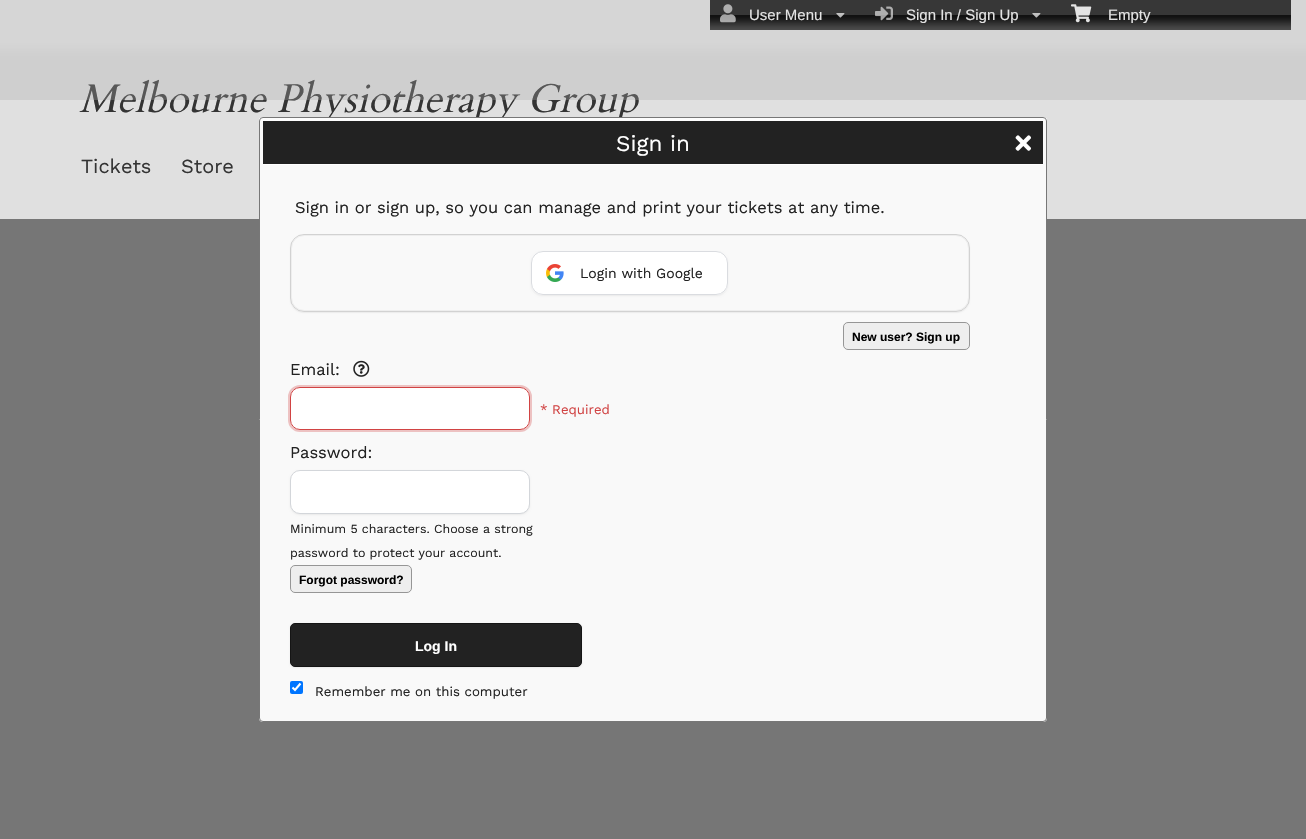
void draw(SkCanvas* canvas) {
	SkPaint fill;
	fill.setAntiAlias(true);
	auto makeFont = [&](const char* family, int weight, float size, bool italic = false) {
		SkFontStyle style(weight, SkFontStyle::kNormal_Width,
			italic ? SkFontStyle::kItalic_Slant : SkFontStyle::kUpright_Slant);
		SkFont result(fontMgr->matchFamilyStyle(family, style), size);
		result.setSubpixel(true);
		return result;
	};
	auto text = [&](const char* s, float x, float y, const SkFont& font) {
		canvas->drawString(s, x, y, font, fill);
	};
	auto box = [&](float l, float t, float r, float b) {
		canvas->drawRect(SkRect::MakeLTRB(l, t, r, b), fill);
	};
	auto roundBox = [&](float l, float t, float r, float b, float radius) {
		canvas->drawRoundRect(SkRect::MakeLTRB(l, t, r, b), radius, radius, fill);
	};
	auto picture = [&](const char* path, float l, float t, float r, float b) {
		auto image = SkImages::DeferredFromEncodedData(SkData::MakeFromFileName(path));
		canvas->drawImageRect(image, SkRect::MakeLTRB(l, t, r, b), SkSamplingOptions());
	};
	canvas->clear(0xFF767676);
	fill.setColor(0xFFE0E0E0);
	box(0, 0, 1306, 219);
	auto font1 = makeFont("Cardo", 400, 40, true);
	fill.setColor(0xFF343434);
	text("Melbourne Physiotherapy Group", 79, 112, font1);
	picture("image0.png", 0, 0, 1306, 100);
	picture("image1.png", 710, 0, 865, 30);
	picture("image3.png", 836, 13, 845, 18);
	picture("image2.png", 720, 4, 736, 23);
	auto font2 = makeFont("Liberation Sans", 400, 15);
	fill.setColor(0xFFE3E3E3);
	text("User Menu", 749, 20, font2);
	picture("image4.png", 865, 0, 1061, 30);
	picture("image3.png", 1032, 13, 1041, 18);
	picture("image5.png", 875, 6, 893, 21);
	text("Sign In / Sign Up", 906, 20, font2);
	picture("image6.png", 1061, 0, 1291, 30);
	text("Empty", 1108, 20, font2);
	picture("image7.png", 1071, 4, 1092, 23);
	auto font3 = makeFont("Work Sans", 400, 20);
	fill.setColor(0xFF343434);
	text("Tickets", 81, 173, font3);
	text("Store", 181, 173, font3);
	fill.setColor(0xFFF9F9F9);
	roundBox(259, 117, 1047, 722, 4);
	fill.setColor(0xFFFDFDFD);
	box(259, 118, 1047, 121);
	fill.setStyle(SkPaint::kStroke_Style);
	fill.setStrokeWidth(1);
	fill.setColor(0xFF777777);
	canvas->drawRoundRect(SkRect::MakeLTRB(259.5f, 117.5f, 1046.5f, 721.5f), 3.5f, 3.5f, fill);
	fill.setStyle(SkPaint::kFill_Style);
	fill.setColor(0xFF222222);
	box(263, 121, 1043, 164);
	fill.setColor(0xFFFFFFFF);
	box(263, 164, 1043, 165);
	auto font4 = makeFont("Work Sans", 400, 22.5f);
	text("Sign in", 616, 151, font4);
	picture("image8.png", 1015, 135, 1031, 151);
	auto font5 = makeFont("Work Sans", 400, 16.5f);
	fill.setColor(0xFF222222);
	text("Sign in or sign up, so you can manage and print your tickets at any time.", 295, 213, font5);
	canvas->save();
	canvas->clipPath(SkPathBuilder(SkPathFillType::kEvenOdd).moveTo(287, 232).lineTo(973, 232).lineTo(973, 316).lineTo(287, 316).close().moveTo(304, 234).lineTo(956, 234).cubicTo(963.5f, 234, 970, 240.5f, 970, 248).lineTo(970, 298).cubicTo(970, 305.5f, 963.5f, 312, 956, 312).lineTo(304, 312).cubicTo(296.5f, 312, 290, 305.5f, 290, 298).lineTo(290, 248).cubicTo(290, 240.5f, 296.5f, 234, 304, 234).close().detach(), true);
	fill.setColor(0x0D000000);
	fill.setMaskFilter(SkMaskFilter::MakeBlur(kNormal_SkBlurStyle, 0.5f));
	canvas->drawRoundRect(SkRect::MakeLTRB(290, 235, 970, 313), 14, 14, fill);
	fill.setMaskFilter(nullptr);
	canvas->restore();
	fill.setStyle(SkPaint::kStroke_Style);
	fill.setColor(0xFFEEEEEE);
	canvas->drawRoundRect(SkRect::MakeLTRB(291.5f, 235.5f, 968.5f, 310.5f), 12.5f, 12.5f, fill);
	fill.setColor(0x2E222222);
	canvas->drawRoundRect(SkRect::MakeLTRB(290.5f, 234.5f, 969.5f, 311.5f), 13.5f, 13.5f, fill);
	fill.setStyle(SkPaint::kFill_Style);
	fill.setColor(0x0F000000);
	fill.setMaskFilter(SkMaskFilter::MakeBlur(kNormal_SkBlurStyle, 1));
	canvas->drawRoundRect(SkRect::MakeLTRB(531, 252, 728, 296), 12, 12, fill);
	fill.setMaskFilter(nullptr);
	fill.setColor(0xFFFFFFFF);
	roundBox(531, 251, 728, 295, 12);
	picture("image9.png", 546, 264, 564, 282);
	fill.setStyle(SkPaint::kStroke_Style);
	fill.setColor(0xFFDADCE0);
	canvas->drawRoundRect(SkRect::MakeLTRB(531.5f, 251.5f, 727.5f, 294.5f), 11.5f, 11.5f, fill);
	auto font6 = makeFont("Work Sans", 400, 14);
	fill.setStyle(SkPaint::kFill_Style);
	fill.setColor(0xFF222222);
	text("Login with Google", 580, 278, font6);
	fill.setColor(0xFFEEEEEE);
	canvas->drawRoundRect(SkRect::MakeLTRB(843.5f, 322.5f, 969.5f, 349.5f), 4.5f, 4.5f, fill);
	fill.setStyle(SkPaint::kStroke_Style);
	fill.setColor(0xFF969696);
	canvas->drawRoundRect(SkRect::MakeLTRB(843.5f, 322.5f, 969.5f, 349.5f), 4.5f, 4.5f, fill);
	auto font7 = makeFont("Liberation Sans", 700, 12);
	fill.setStyle(SkPaint::kFill_Style);
	fill.setColor(0xFF000000);
	text("New user? Sign up", 852, 341, font7);
	fill.setColor(0xFF222222);
	text("Email:", 290, 375, font5);
	picture("image10.png", 353, 360, 370, 377);
	fill.setStyle(SkPaint::kStroke_Style);
	fill.setStrokeWidth(2);
	fill.setColor(0xFFEDC2C2);
	canvas->drawRoundRect(SkRect::MakeLTRB(289, 386, 531, 431), 11, 11, fill);
	fill.setStyle(SkPaint::kFill_Style);
	fill.setColor(0xFFFFFFFF);
	canvas->drawRoundRect(SkRect::MakeLTRB(290.5f, 387.5f, 529.5f, 429.5f), 9.5f, 9.5f, fill);
	fill.setStyle(SkPaint::kStroke_Style);
	fill.setStrokeWidth(1);
	fill.setColor(0xFFD14343);
	canvas->drawRoundRect(SkRect::MakeLTRB(290.5f, 387.5f, 529.5f, 429.5f), 9.5f, 9.5f, fill);
	auto font8 = makeFont("Work Sans", 400, 13.25f);
	fill.setStyle(SkPaint::kFill_Style);
	text("* Required", 540, 414, font8);
	fill.setColor(0xFF222222);
	text("Password:", 290, 458, font5);
	fill.setColor(0x0F000000);
	fill.setMaskFilter(SkMaskFilter::MakeBlur(kNormal_SkBlurStyle, 1));
	canvas->drawRoundRect(SkRect::MakeLTRB(290, 471, 530, 515), 10, 10, fill);
	fill.setMaskFilter(nullptr);
	fill.setColor(0xFFFFFFFF);
	canvas->drawRoundRect(SkRect::MakeLTRB(290.5f, 470.5f, 529.5f, 513.5f), 9.5f, 9.5f, fill);
	fill.setStyle(SkPaint::kStroke_Style);
	fill.setColor(0xFFD3D6DA);
	canvas->drawRoundRect(SkRect::MakeLTRB(290.5f, 470.5f, 529.5f, 513.5f), 9.5f, 9.5f, fill);
	auto font9 = makeFont("Work Sans", 400, 12.4f);
	fill.setStyle(SkPaint::kFill_Style);
	fill.setColor(0xFF222222);
	text("Minimum 5 characters. Choose a strong", 290, 533, font9);
	text("password to protect your account.", 290, 557, font9);
	fill.setColor(0xFFEEEEEE);
	canvas->drawRoundRect(SkRect::MakeLTRB(290.5f, 565.5f, 411.5f, 592.5f), 4.5f, 4.5f, fill);
	fill.setStyle(SkPaint::kStroke_Style);
	fill.setColor(0xFF969696);
	canvas->drawRoundRect(SkRect::MakeLTRB(290.5f, 565.5f, 411.5f, 592.5f), 4.5f, 4.5f, fill);
	fill.setStyle(SkPaint::kFill_Style);
	fill.setColor(0xFF000000);
	text("Forgot password?", 299, 584, font7);
	fill.setColor(0x0F000000);
	fill.setMaskFilter(SkMaskFilter::MakeBlur(kNormal_SkBlurStyle, 1));
	canvas->drawRoundRect(SkRect::MakeLTRB(290, 624, 582, 668), 5, 5, fill);
	fill.setMaskFilter(nullptr);
	fill.setColor(0xFF222222);
	canvas->drawRoundRect(SkRect::MakeLTRB(290.5f, 623.5f, 581.5f, 666.5f), 4.5f, 4.5f, fill);
	fill.setStyle(SkPaint::kStroke_Style);
	fill.setColor(0xFF151515);
	canvas->drawRoundRect(SkRect::MakeLTRB(290.5f, 623.5f, 581.5f, 666.5f), 4.5f, 4.5f, fill);
	auto font10 = makeFont("Liberation Sans", 700, 14);
	fill.setStyle(SkPaint::kFill_Style);
	fill.setColor(0xFFFFFFFF);
	text("Log In", 415, 651, font10);
	fill.setColor(0xFF0075FF);
	roundBox(290, 681, 303, 694, 2);
	fill.setStyle(SkPaint::kStroke_Style);
	fill.setStrokeWidth(2.1f);
	fill.setColor(0xFFFFFFFF);
	canvas->drawPath(SkPathBuilder().moveTo(292.5f, 687.5f).lineTo(295, 690).lineTo(300.5f, 683.5f).detach(), fill);
	fill.setStyle(SkPaint::kFill_Style);
	fill.setColor(0xFF222222);
	text("Remember me on this computer", 315, 696, font8);
}
